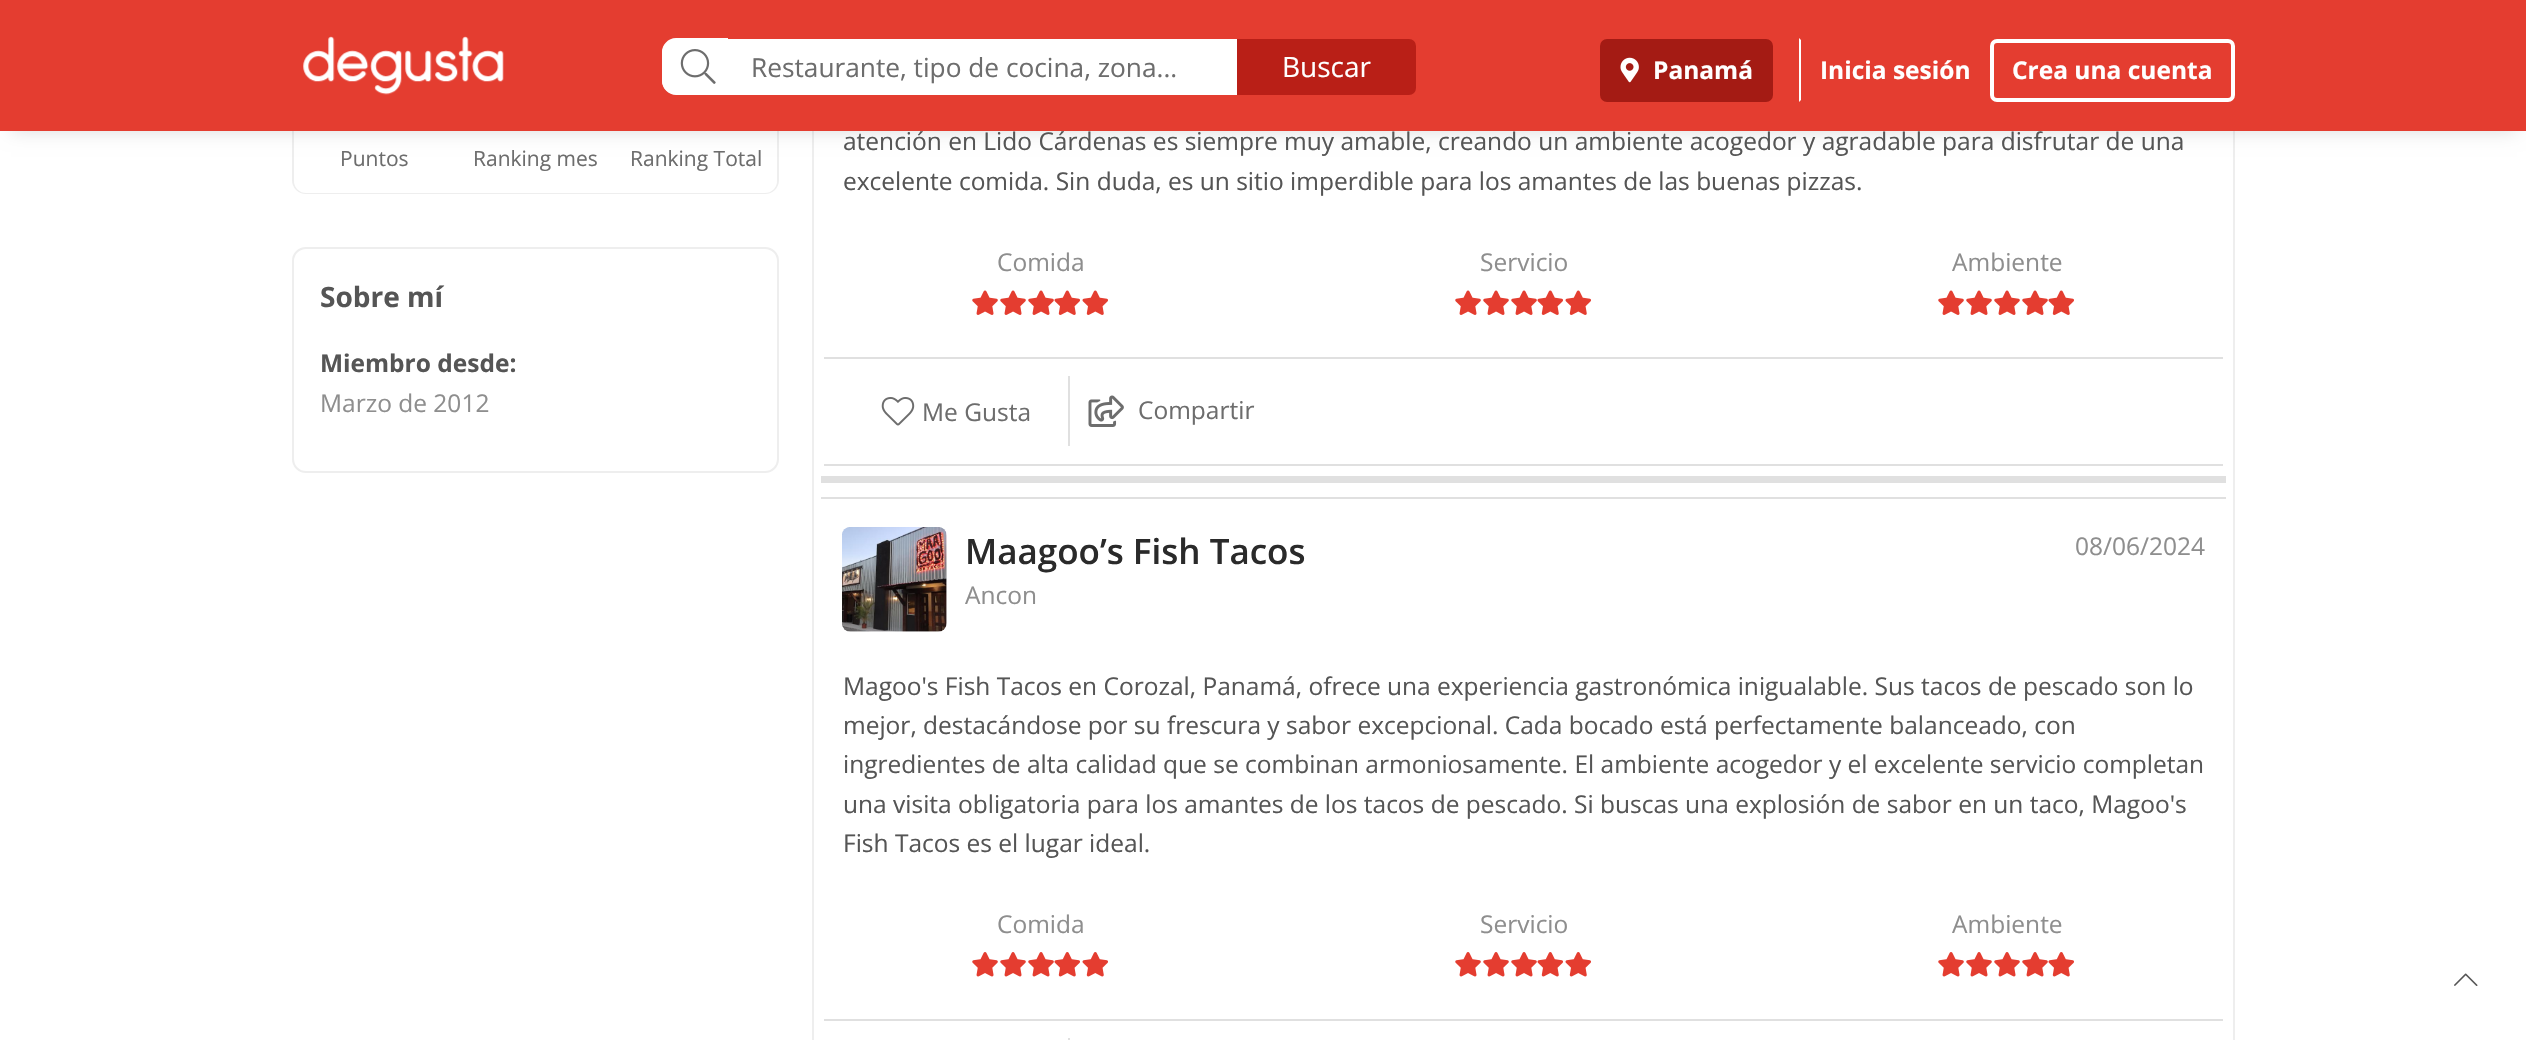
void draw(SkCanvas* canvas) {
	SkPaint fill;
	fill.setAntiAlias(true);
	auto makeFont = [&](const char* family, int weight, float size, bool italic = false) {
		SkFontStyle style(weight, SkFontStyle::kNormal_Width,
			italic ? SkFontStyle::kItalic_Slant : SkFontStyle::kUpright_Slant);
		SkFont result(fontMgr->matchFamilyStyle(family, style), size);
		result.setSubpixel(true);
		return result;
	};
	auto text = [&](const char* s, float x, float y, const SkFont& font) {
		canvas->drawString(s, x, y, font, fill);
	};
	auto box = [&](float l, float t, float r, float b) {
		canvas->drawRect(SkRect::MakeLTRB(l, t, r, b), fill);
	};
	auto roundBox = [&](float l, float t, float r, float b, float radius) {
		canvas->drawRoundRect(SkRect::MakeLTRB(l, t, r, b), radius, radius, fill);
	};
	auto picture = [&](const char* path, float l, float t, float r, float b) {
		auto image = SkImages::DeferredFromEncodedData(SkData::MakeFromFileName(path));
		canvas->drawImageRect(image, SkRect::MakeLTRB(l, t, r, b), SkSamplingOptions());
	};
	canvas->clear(0xFFFFFFFF);
	fill.setStyle(SkPaint::kStroke_Style);
	fill.setStrokeWidth(2);
	fill.setColor(0xFFEEEEEE);
	canvas->drawRoundRect(SkRect::MakeLTRB(293, -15, 778, 193), 13, 13, fill);
	fill.setStyle(SkPaint::kFill_Style);
	fill.setColor(0xFFFFFFFF);
	roundBox(294, -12, 777, 193, 12);
	fill.setStyle(SkPaint::kStroke_Style);
	fill.setColor(0xFFEEEEEE);
	canvas->drawRect(SkRect::MakeLTRB(813, -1, 2234, 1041), fill);
	fill.setStyle(SkPaint::kFill_Style);
	fill.setColor(0x26000000);
	fill.setMaskFilter(SkMaskFilter::MakeBlur(kNormal_SkBlurStyle, 9));
	canvas->drawRect(SkRect::MakeLTRB(11, 19, 2517, 130), fill);
	fill.setMaskFilter(nullptr);
	fill.setColor(0xFFE43D30);
	box(0, 0, 2526, 131);
	picture("image0.png", 303, 36, 504, 95);
	fill.setColor(0xFFFFFFFF);
	canvas->drawPath(SkPathBuilder().moveTo(676, 39).lineTo(728, 39).lineTo(728, 95).lineTo(676, 95).cubicTo(668.5f, 95, 662, 88.5f, 662, 81).lineTo(662, 53).cubicTo(662, 45.5f, 668.5f, 39, 676, 39).close().detach(), fill);
	canvas->drawPath(SkPathBuilder(SkPathFillType::kEvenOdd).moveTo(676, 38).lineTo(728, 38).lineTo(728, 94).lineTo(676, 94).cubicTo(668, 94, 662, 88, 662, 80).lineTo(662, 52).cubicTo(662, 45, 668, 38, 676, 38).close().moveTo(676, 40).lineTo(728, 40).lineTo(728, 93).lineTo(676, 93).cubicTo(669, 93, 663, 87, 663, 80).lineTo(663, 52).cubicTo(663, 46, 669, 40, 676, 40).close().detach(), fill);
	picture("image1.png", 680, 49, 716, 84);
	canvas->drawRect(SkRect::MakeLTRB(729, 40, 1238, 94), fill);
	fill.setStyle(SkPaint::kStroke_Style);
	canvas->drawRect(SkRect::MakeLTRB(729, 40, 1238, 94), fill);
	fill.setStyle(SkPaint::kFill_Style);
	fill.setColor(0xFFB91F17);
	canvas->drawPath(SkPathBuilder().moveTo(1238, 40).lineTo(1409, 40).cubicTo(1412.5f, 40, 1415, 42.5f, 1415, 46).lineTo(1415, 88).cubicTo(1415, 91.5f, 1412.5f, 94, 1409, 94).lineTo(1238, 94).close().detach(), fill);
	fill.setStyle(SkPaint::kStroke_Style);
	canvas->drawPath(SkPathBuilder().moveTo(1238, 40).lineTo(1409, 40).cubicTo(1412.5f, 40, 1415, 42.5f, 1415, 46).lineTo(1415, 88).cubicTo(1415, 91.5f, 1412.5f, 94, 1409, 94).lineTo(1238, 94).close().detach(), fill);
	fill.setStyle(SkPaint::kFill_Style);
	fill.setColor(0xFFA41B14);
	canvas->drawRoundRect(SkRect::MakeLTRB(1601, 40, 1772, 101), 6, 6, fill);
	fill.setStyle(SkPaint::kStroke_Style);
	canvas->drawRoundRect(SkRect::MakeLTRB(1601, 40, 1772, 101), 6, 6, fill);
	picture("image2.png", 1620, 57, 1639, 83);
	fill.setStyle(SkPaint::kFill_Style);
	fill.setColor(0xFFFFFFFF);
	canvas->drawPath(SkPathBuilder().moveTo(1799, 102).lineTo(1799, 38).lineTo(1801, 40).lineTo(1801, 100).close().detach(), fill);
	fill.setStyle(SkPaint::kStroke_Style);
	fill.setStrokeWidth(4);
	canvas->drawRoundRect(SkRect::MakeLTRB(1992, 41, 2233, 100), 5, 5, fill);
	fill.setStrokeWidth(2);
	fill.setColor(0xFFEEEEEE);
	canvas->drawRoundRect(SkRect::MakeLTRB(293, 248, 778, 472), 13, 13, fill);
	fill.setStyle(SkPaint::kFill_Style);
	fill.setColor(0xFFE0E0E0);
	box(821, 476, 2226, 483);
	picture("image3.png", 972, 290, 998, 315);
	picture("image3.png", 1000, 290, 1026, 315);
	picture("image3.png", 1028, 290, 1054, 315);
	picture("image4.png", 1054, 290, 1080, 315);
	picture("image4.png", 1082, 290, 1108, 315);
	picture("image3.png", 1455, 290, 1481, 315);
	picture("image3.png", 1483, 290, 1509, 315);
	picture("image3.png", 1511, 290, 1537, 315);
	picture("image4.png", 1537, 290, 1563, 315);
	picture("image4.png", 1565, 290, 1591, 315);
	picture("image3.png", 1938, 290, 1964, 315);
	picture("image3.png", 1966, 290, 1992, 315);
	picture("image3.png", 1994, 290, 2020, 315);
	picture("image3.png", 2022, 290, 2048, 315);
	picture("image4.png", 2048, 290, 2074, 315);
	box(824, 357, 2223, 359);
	box(824, 464, 2223, 466);
	box(1068, 376, 1070, 446);
	picture("image5.png", 881, 397, 915, 426);
	picture("image6.png", 1088, 395, 1124, 427);
	box(821, 497, 2226, 499);
	picture("image7.png", 842, 527, 947, 632);
	picture("image8.png", 972, 952, 998, 977);
	picture("image8.png", 1000, 952, 1026, 977);
	picture("image8.png", 1028, 952, 1054, 977);
	picture("image9.png", 1054, 952, 1080, 977);
	picture("image9.png", 1082, 952, 1108, 977);
	picture("image8.png", 1455, 952, 1481, 977);
	picture("image8.png", 1483, 952, 1509, 977);
	picture("image8.png", 1511, 952, 1537, 977);
	picture("image9.png", 1537, 952, 1563, 977);
	picture("image9.png", 1565, 952, 1591, 977);
	picture("image8.png", 1938, 952, 1964, 977);
	picture("image8.png", 1966, 952, 1992, 977);
	picture("image8.png", 1994, 952, 2020, 977);
	picture("image8.png", 2022, 952, 2048, 977);
	picture("image9.png", 2048, 952, 2074, 977);
	box(824, 1019, 2223, 1021);
	box(1068, 1038, 1070, 1040);
	picture("image10.png", 2454, 973, 2478, 986);
	auto font1 = makeFont("Open Sans", 400, 26.25f);
	fill.setColor(0xFF6D6D6D);
	text("Restaurante, tipo de cocina, zona...", 751, 77, font1);
	auto font2 = makeFont("Open Sans", 400, 28);
	fill.setColor(0xFFFFFFFF);
	text("Buscar", 1282, 77, font2);
	auto font3 = makeFont("Open Sans", 700, 24.5f);
	text("Panamá", 1653, 79, font3);
	text("Inicia sesión", 1820, 79, font3);
	text("Crea una cuenta", 2012, 79, font3);
	auto font4 = makeFont("Open Sans", 400, 21);
	fill.setColor(0xFF6D6D6D);
	text("Puntos", 340, 166, font4);
	text("Ranking mes", 473, 166, font4);
	text("Ranking Total", 630, 166, font4);
	auto font5 = makeFont("Open Sans", 700, 28);
	fill.setColor(0xFF555555);
	text("Sobre mí", 320, 307, font5);
	text("Miembro desde:", 320, 372, font3);
	auto font6 = makeFont("Open Sans", 400, 24.5f);
	fill.setColor(0xFF8E8E8E);
	text("Marzo de 2012", 320, 412, font6);
	fill.setColor(0xFF555555);
	text("atención en Lido Cárdenas es siempre muy amable, creando un ambiente acogedor y agradable para disfrutar de una", 843, 150, font6);
	text("excelente comida. Sin duda, es un sitio imperdible para los amantes de las buenas pizzas.", 843, 190, font6);
	fill.setColor(0xFF8E8E8E);
	text("Comida", 997, 271, font6);
	text("Servicio", 1480, 271, font6);
	text("Ambiente", 1952, 271, font6);
	fill.setColor(0xFF6D6D6D);
	text("Me Gusta", 922, 421, font6);
	text("Compartir", 1138, 419, font6);
	auto font7 = makeFont("Open Sans", 600, 35);
	fill.setColor(0xFF2A2A2A);
	text("Maagoo’s Fish Tacos", 965, 564, font7);
	fill.setColor(0xFF8E8E8E);
	text("Ancon", 965, 604, font6);
	text("08/06/2024", 2075, 555, font6);
	fill.setColor(0xFF555555);
	text("Magoo's Fish Tacos en Corozal, Panamá, ofrece una experiencia gastronómica inigualable. Sus tacos de pescado son lo", 843, 695, font6);
	text("mejor, destacándose por su frescura y sabor excepcional. Cada bocado está perfectamente balanceado, con", 843, 734, font6);
	text("ingredientes de alta calidad que se combinan armoniosamente. El ambiente acogedor y el excelente servicio completan", 843, 773, font6);
	text("una visita obligatoria para los amantes de los tacos de pescado. Si buscas una explosión de sabor en un taco, Magoo's", 843, 813, font6);
	text("Fish Tacos es el lugar ideal.", 843, 852, font6);
	fill.setColor(0xFF8E8E8E);
	text("Comida", 997, 933, font6);
	text("Servicio", 1480, 933, font6);
	text("Ambiente", 1952, 933, font6);
}
